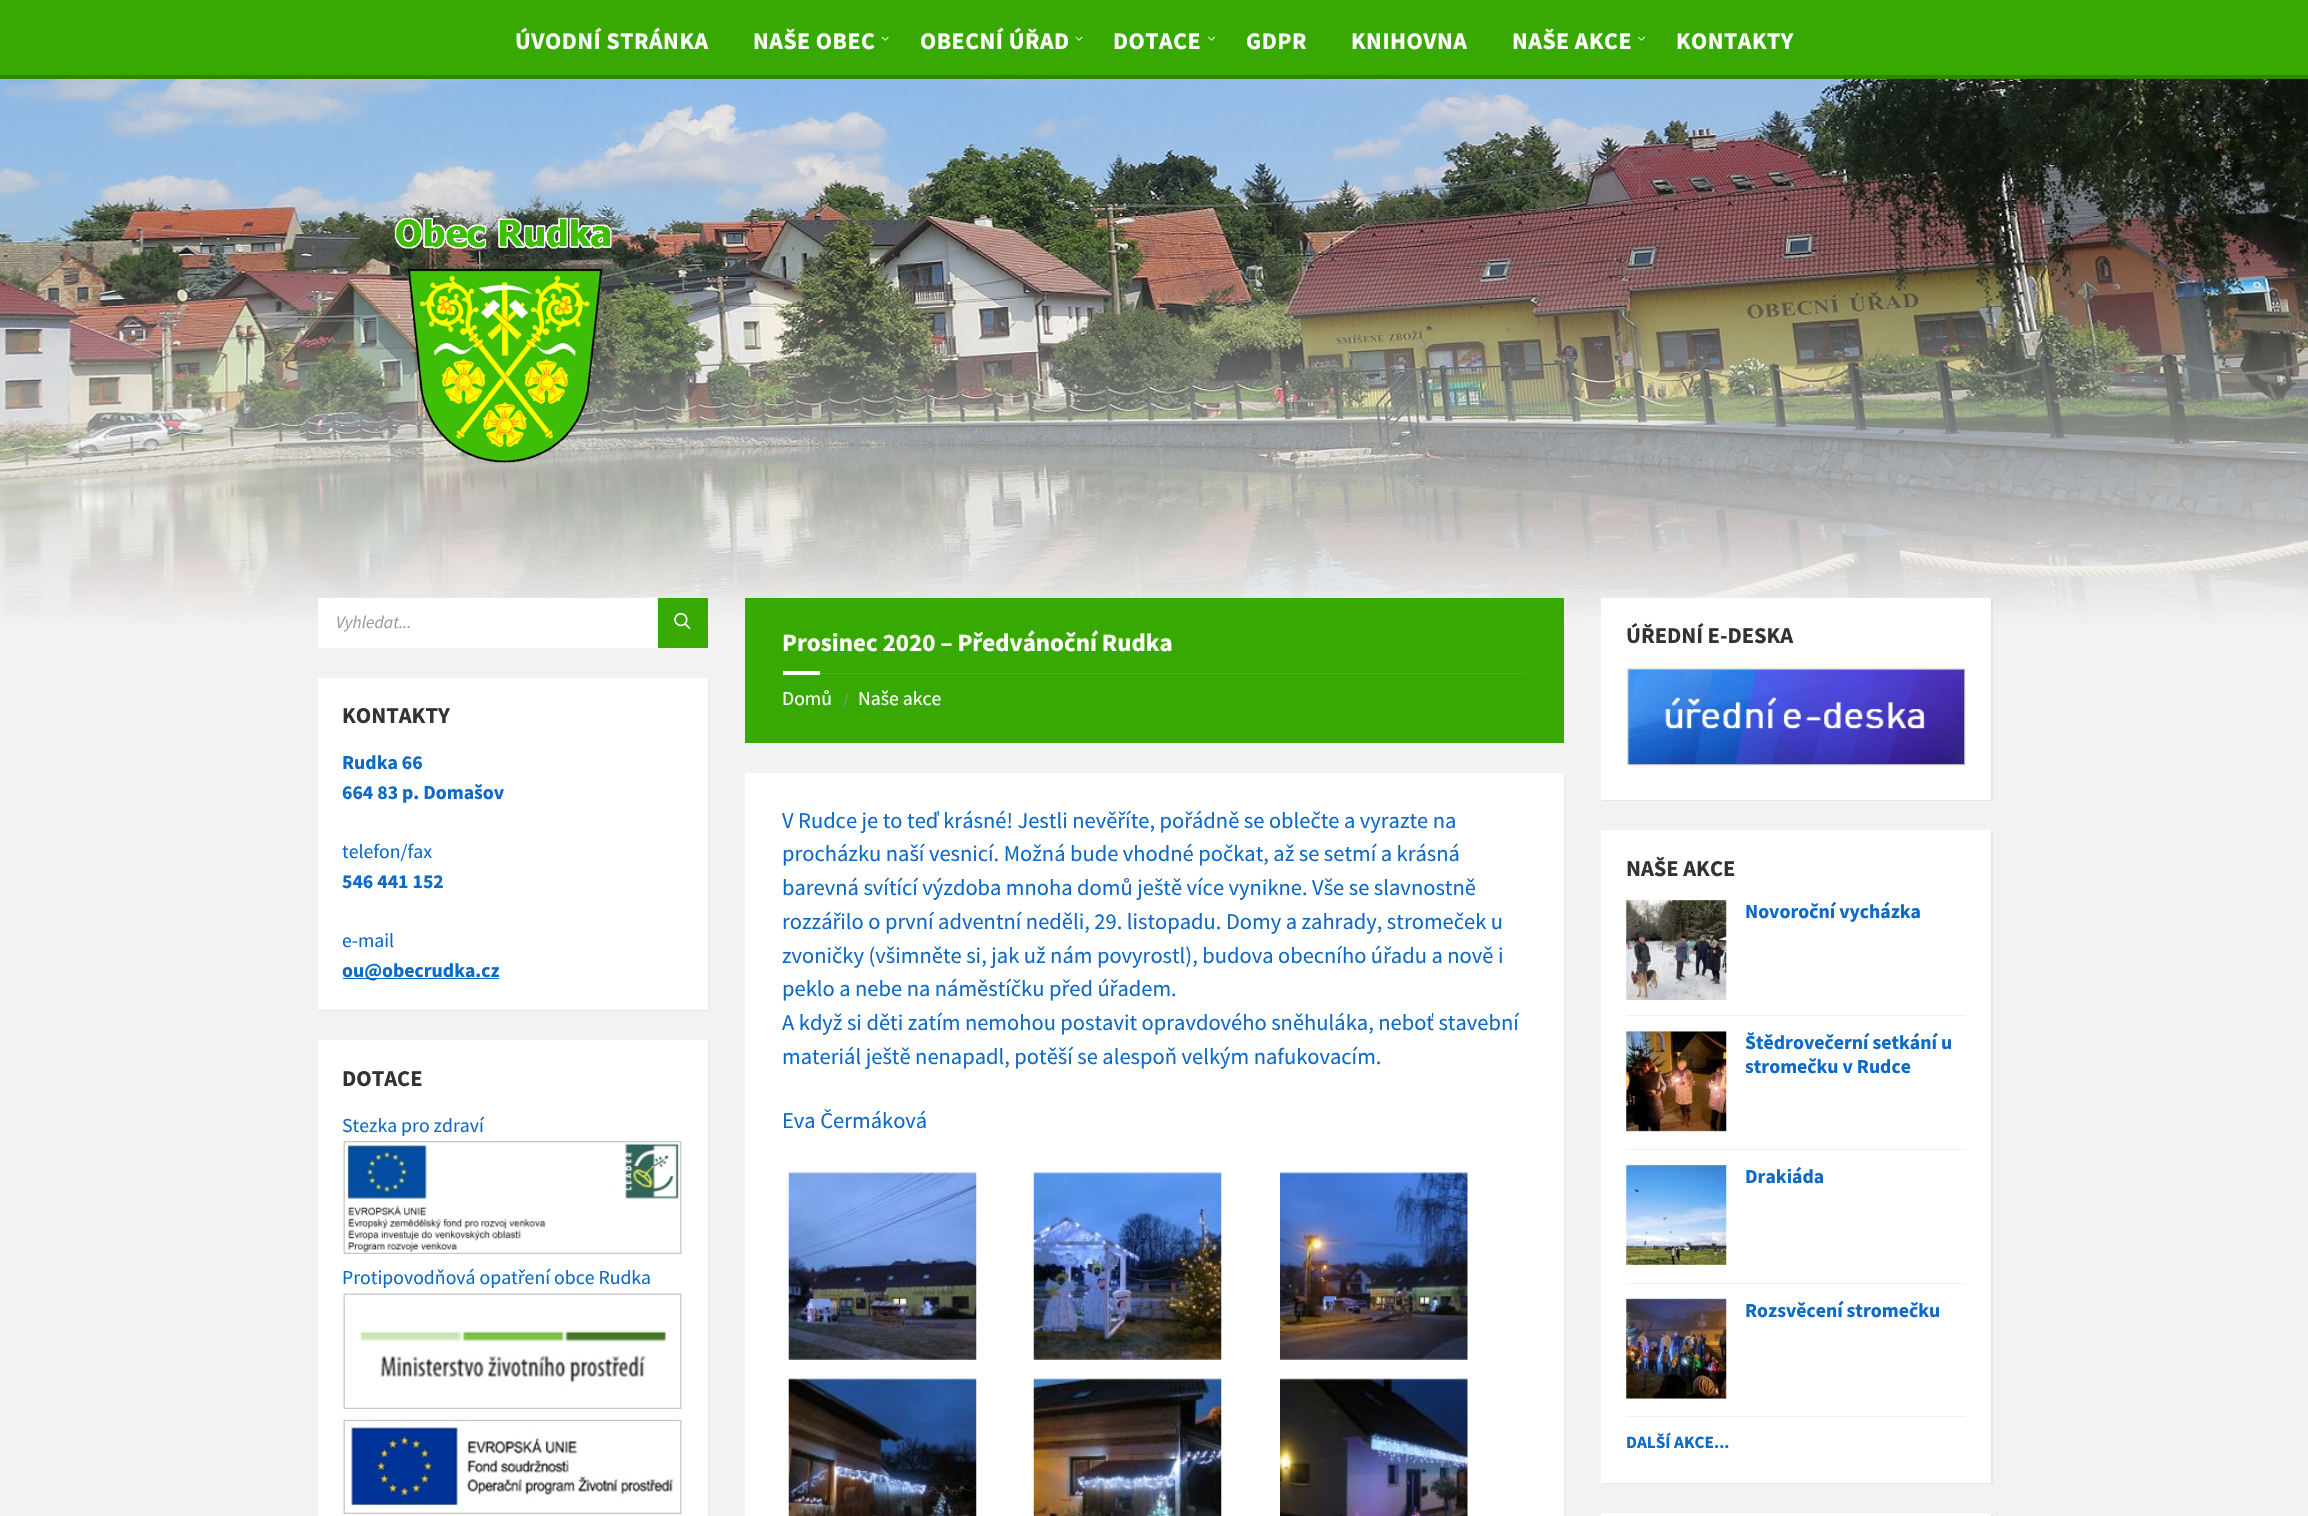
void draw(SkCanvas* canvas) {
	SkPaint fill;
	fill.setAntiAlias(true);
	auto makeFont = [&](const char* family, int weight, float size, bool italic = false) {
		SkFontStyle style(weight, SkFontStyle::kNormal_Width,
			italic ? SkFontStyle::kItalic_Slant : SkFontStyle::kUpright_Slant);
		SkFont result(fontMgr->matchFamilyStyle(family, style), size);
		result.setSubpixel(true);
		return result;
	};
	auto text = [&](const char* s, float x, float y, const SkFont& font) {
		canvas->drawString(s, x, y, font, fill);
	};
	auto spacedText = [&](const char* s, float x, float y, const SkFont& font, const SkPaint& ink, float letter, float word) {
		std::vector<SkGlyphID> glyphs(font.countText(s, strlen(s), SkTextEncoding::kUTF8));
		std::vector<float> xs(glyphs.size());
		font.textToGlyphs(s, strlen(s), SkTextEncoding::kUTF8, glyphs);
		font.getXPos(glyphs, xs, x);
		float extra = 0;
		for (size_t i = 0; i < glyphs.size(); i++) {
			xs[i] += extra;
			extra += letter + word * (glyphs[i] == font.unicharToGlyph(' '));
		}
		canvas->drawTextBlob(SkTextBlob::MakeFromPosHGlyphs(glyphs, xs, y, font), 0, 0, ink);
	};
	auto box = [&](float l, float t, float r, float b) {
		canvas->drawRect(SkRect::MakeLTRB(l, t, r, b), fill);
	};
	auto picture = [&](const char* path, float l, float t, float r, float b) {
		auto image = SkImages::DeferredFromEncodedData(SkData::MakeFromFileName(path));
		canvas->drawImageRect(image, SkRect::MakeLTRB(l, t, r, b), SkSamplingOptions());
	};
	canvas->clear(0xFFF2F2F2);
	fill.setColor(0xFF38A802);
	box(0, 0, 2308, 75);
	fill.setColor(0xFF2D8602);
	box(0, 75, 2308, 79);
	picture("image0.png", 881, 36, 889, 41);
	picture("image1.png", 1075, 36, 1083, 41);
	picture("image2.png", 1208, 36, 1215, 41);
	picture("image2.png", 1638, 36, 1645, 41);
	picture("image4.png", 0, 79, 2308, 625);
	picture("image3.png", 394, 217, 612, 463);
	fill.setColor(0xFFFFFFFF);
	box(318, 598, 658, 648);
	fill.setColor(0xFF38A802);
	box(658, 598, 708, 648);
	picture("image5.png", 674, 612, 691, 630);
	fill.setColor(0xFFE6E6E6);
	canvas->drawPath(SkPathBuilder().moveTo(319, 1010).lineTo(319, 1011).lineTo(709, 1011).lineTo(709, 679).lineTo(708, 679).lineTo(708, 1010).close().detach(), fill);
	fill.setColor(0xFFFFFFFF);
	box(318, 678, 708, 1010);
	fill.setColor(0xFF0D6AC6);
	box(343, 978, 499, 979);
	fill.setColor(0xFFE6E6E6);
	canvas->drawPath(SkPathBuilder().moveTo(319, 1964).lineTo(319, 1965).lineTo(709, 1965).lineTo(709, 1041).lineTo(708, 1041).lineTo(708, 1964).close().detach(), fill);
	fill.setColor(0xFFFFFFFF);
	box(318, 1040, 708, 1516);
	picture("image6.png", 343, 1141, 682, 1254);
	picture("image7.png", 343, 1293, 682, 1409);
	picture("image8.png", 343, 1419, 682, 1514);
	fill.setColor(0xFF38A802);
	box(745, 598, 1564, 743);
	fill.setColor(0xFF4CB11B);
	box(820, 673, 1526, 674);
	fill.setColor(0xFFFFFFFF);
	box(783, 671, 820, 675);
	fill.setColor(0xFFE6E6E6);
	canvas->drawPath(SkPathBuilder().moveTo(746, 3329).lineTo(746, 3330).lineTo(1565, 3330).lineTo(1565, 774).lineTo(1564, 774).lineTo(1564, 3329).close().detach(), fill);
	fill.setColor(0xFFFFFFFF);
	box(745, 773, 1564, 1516);
	picture("image9.png", 788, 1172, 977, 1360);
	picture("image10.png", 1033, 1172, 1222, 1360);
	picture("image11.png", 1280, 1172, 1468, 1360);
	picture("image12.png", 788, 1378, 977, 1516);
	picture("image13.png", 1033, 1378, 1222, 1516);
	picture("image14.png", 1280, 1378, 1468, 1516);
	fill.setColor(0x0D000000);
	canvas->drawPath(SkPathBuilder().moveTo(1603, 800).lineTo(1603, 801).lineTo(1993, 801).lineTo(1993, 599).lineTo(1991, 599).lineTo(1991, 800).close().detach(), fill);
	fill.setColor(0xFFFFFFFF);
	box(1601, 598, 1991, 800);
	picture("image15.png", 1626, 667, 1966, 766);
	fill.setColor(0xFFE6E6E6);
	canvas->drawPath(SkPathBuilder().moveTo(1603, 1482).lineTo(1603, 1484).lineTo(1993, 1484).lineTo(1993, 831).lineTo(1991, 831).lineTo(1991, 1482).close().detach(), fill);
	fill.setColor(0xFFFFFFFF);
	box(1601, 830, 1991, 1483);
	picture("image16.png", 1626, 900, 1727, 1000);
	fill.setColor(0xFFF0F0F0);
	box(1626, 1015, 1966, 1016);
	picture("image17.png", 1626, 1031, 1727, 1132);
	box(1626, 1149, 1966, 1150);
	picture("image18.png", 1626, 1165, 1727, 1265);
	box(1626, 1283, 1966, 1284);
	picture("image19.png", 1626, 1298, 1727, 1399);
	box(1626, 1416, 1966, 1417);
	fill.setColor(0xFFE6E6E6);
	canvas->drawPath(SkPathBuilder().moveTo(1603, 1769).lineTo(1603, 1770).lineTo(1993, 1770).lineTo(1993, 1514).lineTo(1991, 1514).lineTo(1991, 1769).close().detach(), fill);
	fill.setColor(0xFFFFFFFF);
	box(1601, 1513, 1991, 1516);
	auto font1 = makeFont("Source Sans Pro", 700, 23.75f);
	spacedText("ÚVODNÍ STRÁNKA", 515, 49, font1, fill, 0.5f, 0);
	spacedText("NAŠE OBEC", 753, 49, font1, fill, 0.5f, 0);
	spacedText("OBECNÍ ÚŘAD", 920, 49, font1, fill, 0.5f, 0);
	spacedText("DOTACE", 1113, 49, font1, fill, 0.5f, 0);
	spacedText("GDPR", 1246, 49, font1, fill, 0.5f, 0);
	spacedText("KNIHOVNA", 1351, 49, font1, fill, 0.5f, 0);
	spacedText("NAŠE AKCE", 1512, 49, font1, fill, 0.5f, 0);
	spacedText("KONTAKTY", 1676, 49, font1, fill, 0.5f, 0);
	auto font2 = makeFont("Source Sans Pro", 400, 17.5f, true);
	fill.setColor(0xFF9A9A9A);
	text("Vyhledat...", 336, 628, font2);
	auto font3 = makeFont("Source Sans Pro", 700, 22.5f);
	fill.setColor(0xFF333333);
	text("KONTAKTY", 342, 723, font3);
	auto font4 = makeFont("Source Sans Pro", 700, 19.75f);
	fill.setColor(0xFF0D6AC6);
	text("Rudka 66", 342, 769, font4);
	text("664 83 p. Domašov", 342, 799, font4);
	auto font5 = makeFont("Source Sans Pro", 400, 19.75f);
	text("telefon/fax", 342, 858, font5);
	text("546 441 152", 342, 888, font4);
	text("e-mail", 342, 947, font5);
	text("ou@obecrudka.cz", 342, 977, font4);
	fill.setColor(0xFF333333);
	text("DOTACE", 342, 1086, font3);
	fill.setColor(0xFF0D6AC6);
	text("Stezka pro zdraví", 342, 1132, font5);
	text("Protipovodňová opatření obce Rudka", 342, 1284, font5);
	auto font6 = makeFont("Source Sans Pro", 700, 25);
	fill.setColor(0xFFFFFFFF);
	text("Prosinec 2020 – Předvánoční Rudka", 782, 651, font6);
	text("Domů", 782, 705, font5);
	auto font7 = makeFont("Source Sans Pro", 400, 15);
	fill.setColor(0xFF8A949B);
	text("/", 843, 705, font7);
	fill.setColor(0xFFFFFFFF);
	text("Naše akce", 858, 705, font5);
	auto font8 = makeFont("Source Sans Pro", 400, 22.5f);
	fill.setColor(0xFF0D6AC6);
	text("V Rudce je to teď krásné! Jestli nevěříte, pořádně se oblečte a vyrazte na", 782, 828, font8);
	text("procházku naší vesnicí. Možná bude vhodné počkat, až se setmí a krásná", 782, 861, font8);
	text("barevná svítící výzdoba mnoha domů ještě více vynikne. Vše se slavnostně", 782, 895, font8);
	text("rozzářilo o první adventní neděli, 29. listopadu. Domy a zahrady, stromeček u", 782, 929, font8);
	text("zvoničky (všimněte si, jak už nám povyrostl), budova obecního úřadu a nově i", 782, 963, font8);
	text("peklo a nebe na náměstíčku před úřadem.", 782, 996, font8);
	text("A když si děti zatím nemohou postavit opravdového sněhuláka, neboť stavební", 782, 1030, font8);
	text("materiál ještě nenapadl, potěší se alespoň velkým nafukovacím.", 782, 1064, font8);
	text("Eva Čermáková", 782, 1128, font8);
	fill.setColor(0xFF333333);
	text("ÚŘEDNÍ E-DESKA", 1626, 643, font3);
	text("NAŠE AKCE", 1626, 876, font3);
	fill.setColor(0xFF0D6AC6);
	text("Novoroční vycházka", 1745, 918, font4);
	text("Štědrovečerní setkání u", 1745, 1049, font4);
	text("stromečku v Rudce", 1745, 1073, font4);
	text("Drakiáda", 1745, 1183, font4);
	text("Rozsvěcení stromečku", 1745, 1317, font4);
	auto font9 = makeFont("Source Sans Pro", 700, 17.25f);
	text("DALŠÍ AKCE...", 1626, 1448, font9);
}
